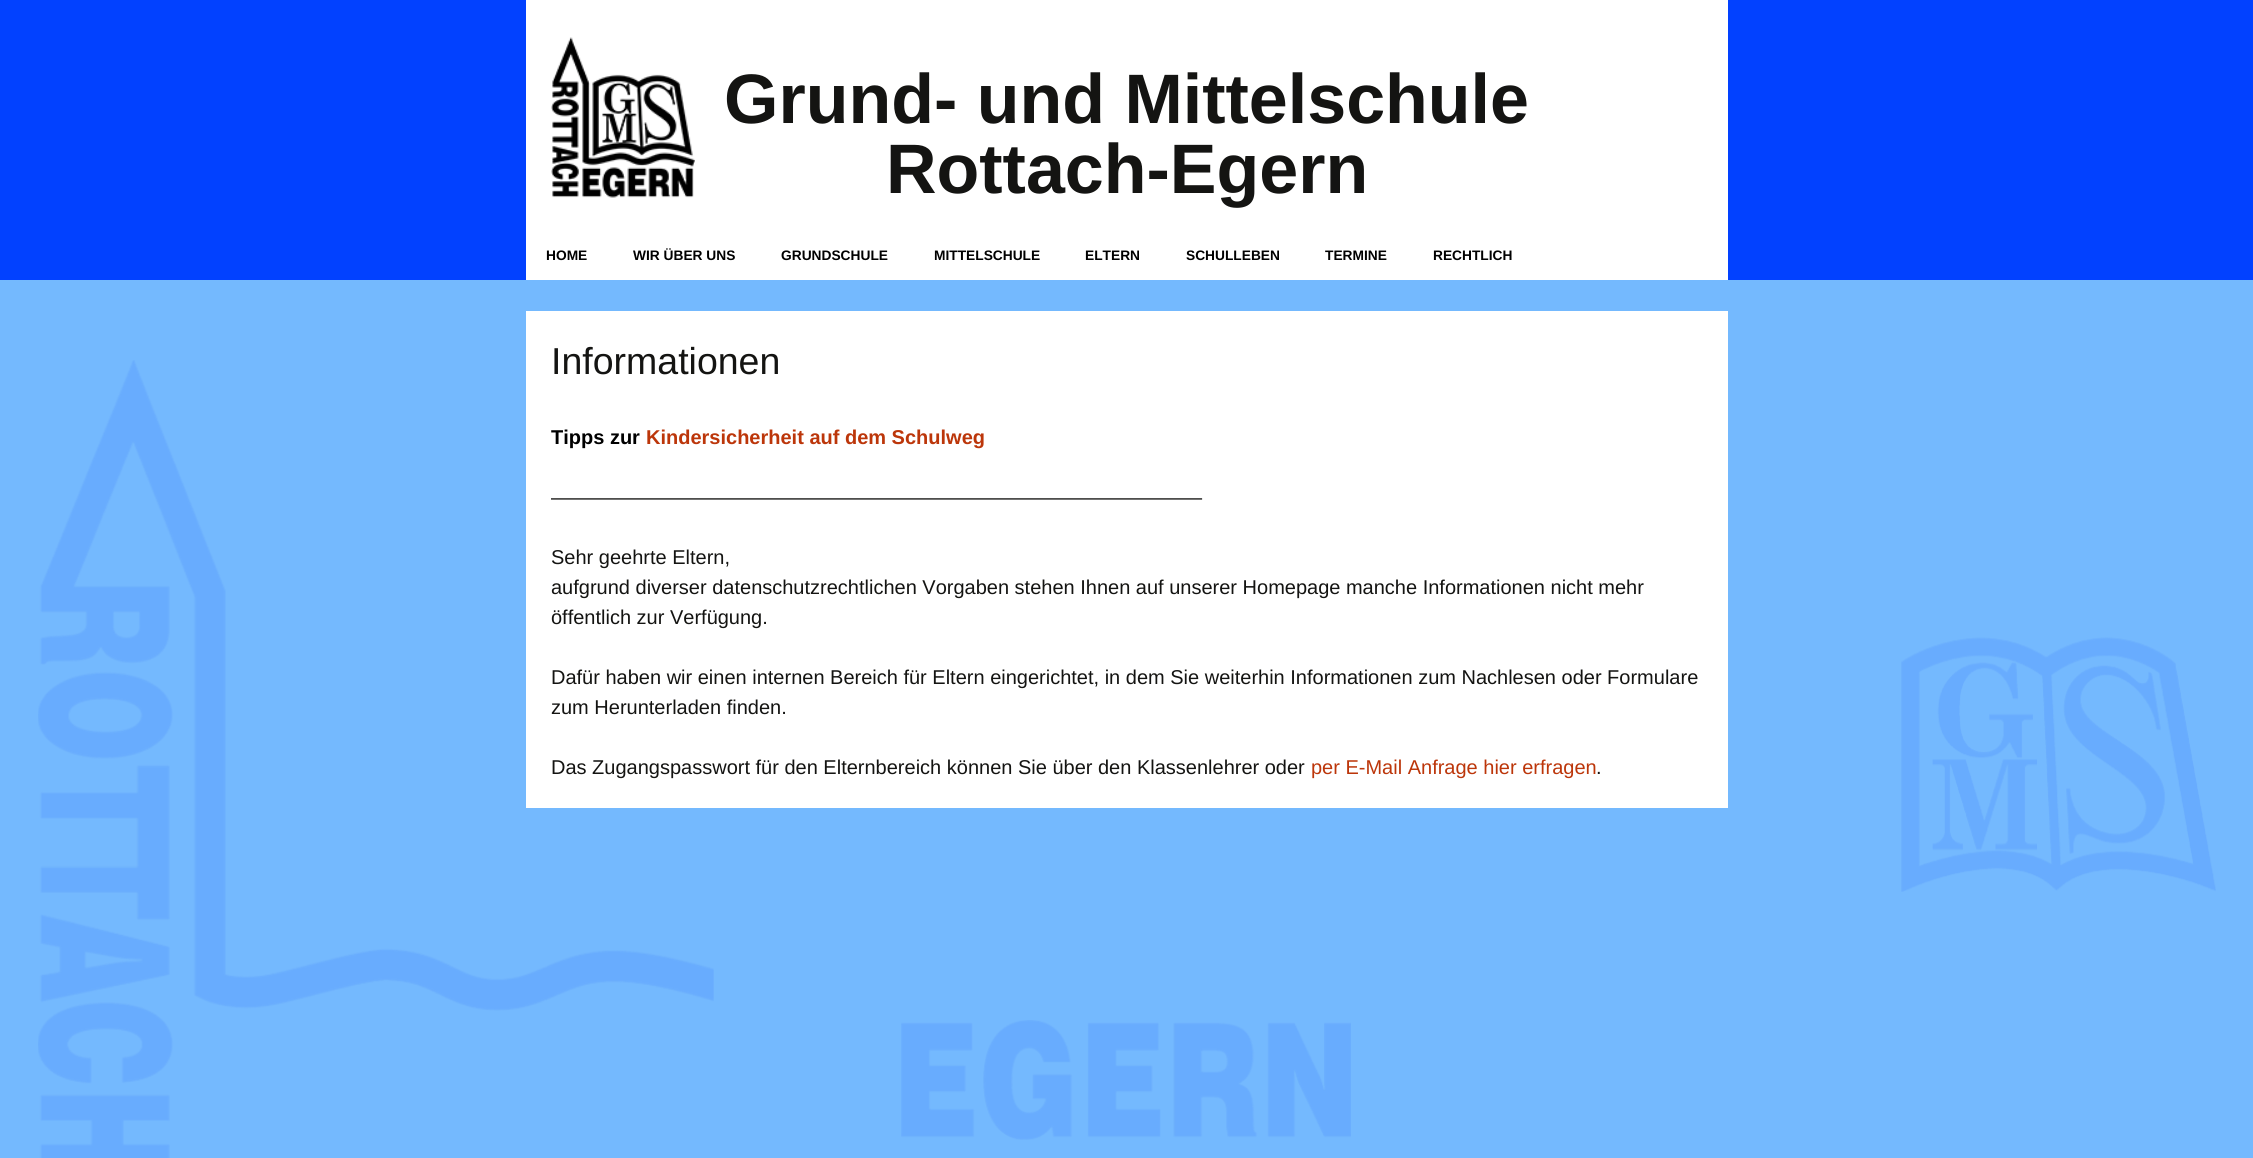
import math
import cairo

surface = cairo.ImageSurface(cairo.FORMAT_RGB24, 2253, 1158)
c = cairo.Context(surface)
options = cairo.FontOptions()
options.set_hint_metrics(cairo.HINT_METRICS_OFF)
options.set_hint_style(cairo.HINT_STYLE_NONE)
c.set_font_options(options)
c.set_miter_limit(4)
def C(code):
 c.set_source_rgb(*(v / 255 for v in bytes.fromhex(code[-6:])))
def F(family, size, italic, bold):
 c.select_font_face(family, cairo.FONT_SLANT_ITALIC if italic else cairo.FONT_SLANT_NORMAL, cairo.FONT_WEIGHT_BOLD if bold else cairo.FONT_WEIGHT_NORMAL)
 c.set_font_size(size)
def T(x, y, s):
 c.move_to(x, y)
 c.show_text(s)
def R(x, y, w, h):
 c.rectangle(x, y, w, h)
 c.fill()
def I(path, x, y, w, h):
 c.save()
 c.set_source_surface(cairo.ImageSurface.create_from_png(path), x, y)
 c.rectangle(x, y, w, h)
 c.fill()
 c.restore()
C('74b9fe')
c.paint()
I('1.png',38,360,676,798)
C('0241ff')
R(0,0,2253,280)
C('ffffff')
R(526,0,1202,280)
I('2.png',551,37,144,161)
F('Liberation Sans',70,0,1)
C('141412')
T(724,123,'Grund- und Mittelschule')
T(886,193,'Rottach-Egern')
F('Liberation Sans',13.75,0,1)
C('000000')
T(546,260,'HOME')
T(633,260,'WIR ÜBER UNS')
T(781,260,'GRUNDSCHULE')
T(934,260,'MITTELSCHULE')
T(1085,260,'ELTERN')
T(1186,260,'SCHULLEBEN')
T(1325,260,'TERMINE')
T(1433,260,'RECHTLICH')
C('ffffff')
R(526,311,1202,497)
F('Liberation Sans',37.5,0,0)
C('141412')
T(551,374,'Informationen')
F('Liberation Sans',20,0,1)
C('000000')
T(551,444,'Tipps zur')
C('bc360a')
T(646,444,'Kindersicherheit auf dem Schulweg')
F('Liberation Sans',20,0,0)
C('141412')
T(551,504,'————————————————————————————————–')
T(551,564,'Sehr geehrte Eltern,')
T(551,594,'aufgrund diverser datenschutzrechtlichen Vorgaben stehen Ihnen auf unserer Homepage manche Informationen nicht mehr')
T(551,624,'öffentlich zur Verfügung.')
T(551,684,'Dafür haben wir einen internen Bereich für Eltern eingerichtet, in dem Sie weiterhin Informationen zum Nachlesen oder Formulare')
T(551,714,'zum Herunterladen finden.')
T(551,774,'Das Zugangspasswort für den Elternbereich können Sie über den Klassenlehrer oder')
C('bc360a')
T(1311,774,'per E-Mail Anfrage hier erfragen')
C('141412')
T(1596,774,'.')
I('3.png',1901,637,315,255)
I('4.png',901,1020,450,120)
surface.write_to_png('o.png')
